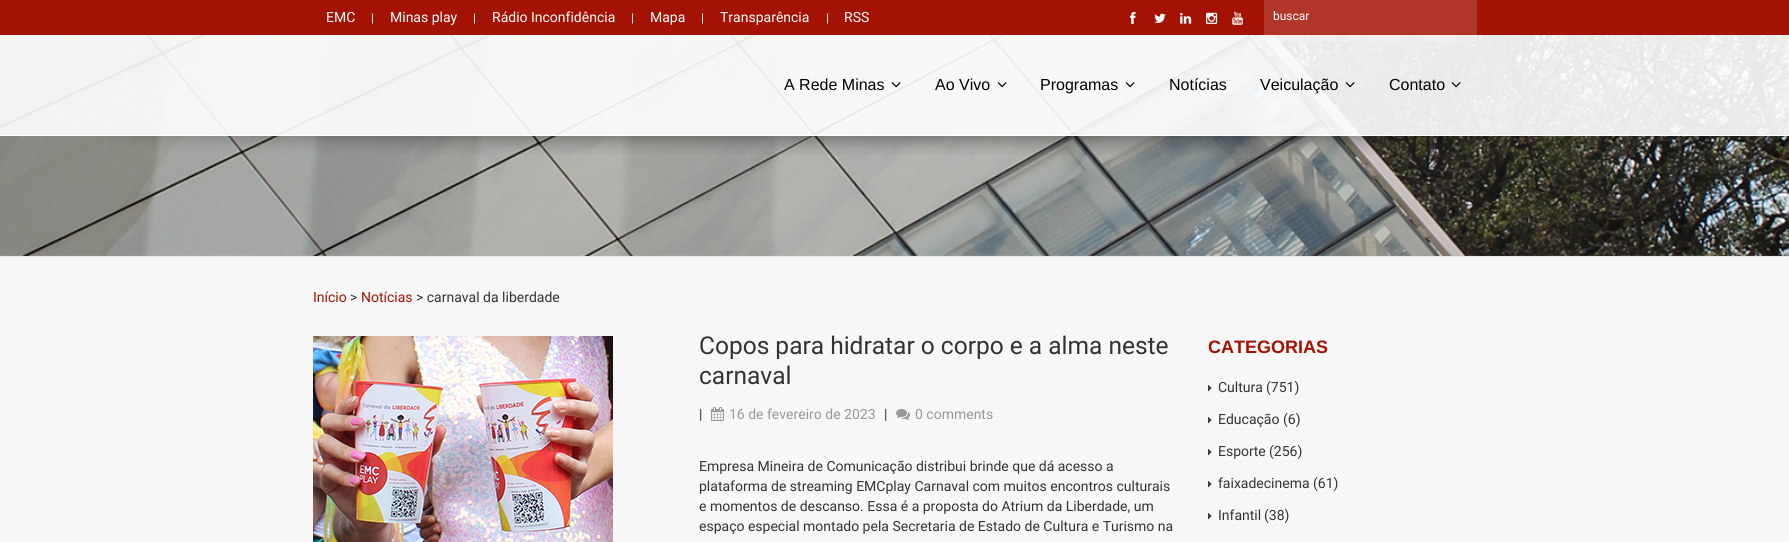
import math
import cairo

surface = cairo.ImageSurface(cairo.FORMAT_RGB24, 1789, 542)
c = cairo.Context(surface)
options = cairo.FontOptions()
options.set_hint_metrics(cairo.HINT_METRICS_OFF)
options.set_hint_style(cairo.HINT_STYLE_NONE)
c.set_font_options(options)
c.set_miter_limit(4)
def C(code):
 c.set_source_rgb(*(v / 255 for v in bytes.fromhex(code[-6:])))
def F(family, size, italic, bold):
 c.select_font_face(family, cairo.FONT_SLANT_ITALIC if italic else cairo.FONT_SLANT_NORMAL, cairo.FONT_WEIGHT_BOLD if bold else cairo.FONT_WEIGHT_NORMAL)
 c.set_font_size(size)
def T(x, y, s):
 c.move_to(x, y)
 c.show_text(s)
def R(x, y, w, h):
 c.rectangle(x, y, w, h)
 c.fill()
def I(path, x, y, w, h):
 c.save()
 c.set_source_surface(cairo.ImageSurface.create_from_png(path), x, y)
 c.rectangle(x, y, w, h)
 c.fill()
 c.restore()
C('ffffff')
c.paint()
I('1.png',0,257,1789,285)
C('a31202')
R(0,0,1789,35)
F('Roboto',14,0,0)
C('ffffff')
T(326,22,'EMC')
F('Roboto',12,0,0)
T(371,22,'|')
F('Roboto',14,0,0)
T(390,22,'Minas play')
F('Roboto',12,0,0)
T(473,22,'|')
F('Roboto',14,0,0)
T(492,22,'Rádio Inconfidência')
F('Roboto',12,0,0)
T(631,22,'|')
F('Roboto',14,0,0)
T(650,22,'Mapa')
F('Roboto',12,0,0)
T(701,22,'|')
F('Roboto',14,0,0)
T(720,22,'Transparência')
F('Roboto',12,0,0)
T(826,22,'|')
F('Roboto',14,0,0)
T(844,22,'RSS')
I('2.png',1130,12,6,12)
I('3.png',1154,13,12,10)
I('4.png',1180,12,12,12)
I('5.png',1206,12,12,12)
I('6.png',1232,11,11,14)
I('13.png',0,35,1789,221)
c.set_source_rgba(1,1,1,0.15)
R(1264,0,213,42)
F('Roboto',12,0,0)
C('ffffff')
T(1273,20,'buscar')
c.set_source_rgba(1,1,1,0.9)
R(0,35,1789,100)
C('ffffff')
R(0,135,1789,1)
F('Liberation Sans',16,0,0)
C('000000')
T(784,90,'A Rede Minas')
I('7.png',891,82,10,6)
T(935,90,'Ao Vivo')
I('8.png',997,82,10,6)
T(1040,90,'Programas')
I('9.png',1125,82,10,6)
T(1169,90,'Notícias')
T(1260,90,'Veiculação')
I('10.png',1345,82,10,6)
T(1389,90,'Contato')
I('11.png',1451,82,10,6)
I('12.png',107,136,1568,19)
C('e9e9e9')
R(0,256,1789,1)
F('Roboto',14,0,0)
C('a31202')
T(313,302,'Início')
C('333333')
T(350,302,'>')
C('a31202')
T(361,302,'Notícias')
C('333333')
T(416,302,'> carnaval da liberdade')
I('14.png',313,336,300,206)
F('Roboto',24.5,0,0)
T(699,354,'Copos para hidratar o corpo e a alma neste')
T(699,384,'carnaval')
F('Roboto',14,0,0)
T(699,419,'|')
I('15.png',711,407,13,14)
C('989898')
T(729,419,'16 de fevereiro de 2023')
C('333333')
T(884,419,'|')
I('16.png',896,409,14,11)
C('989898')
T(915,419,'0 comments')
C('333333')
T(699,471,'Empresa Mineira de Comunicação distribui brinde que dá acesso a')
T(699,491,'plataforma de streaming EMCplay Carnaval com muitos encontros culturais')
T(699,511,'e momentos de descanso. Essa é a proposta do Atrium da Liberdade, um')
T(699,531,'espaço especial montado pela Secretaria de Estado de Cultura e Turismo na')
F('Liberation Sans',18,0,1)
C('a31202')
T(1208,353,'CATEGORIAS')
I('17.png',1208,385,4,7)
F('Roboto',14,0,0)
C('333333')
T(1218,392,'Cultura')
T(1266,392,'(751)')
I('17.png',1208,417,4,7)
T(1218,424,'Educação')
T(1283,424,'(6)')
I('17.png',1208,449,4,7)
T(1218,456,'Esporte')
T(1269,456,'(256)')
I('17.png',1208,481,4,7)
T(1218,488,'faixadecinema')
T(1313,488,'(61)')
I('17.png',1208,513,4,7)
T(1218,520,'Infantil')
T(1264,520,'(38)')
surface.write_to_png('o.png')
